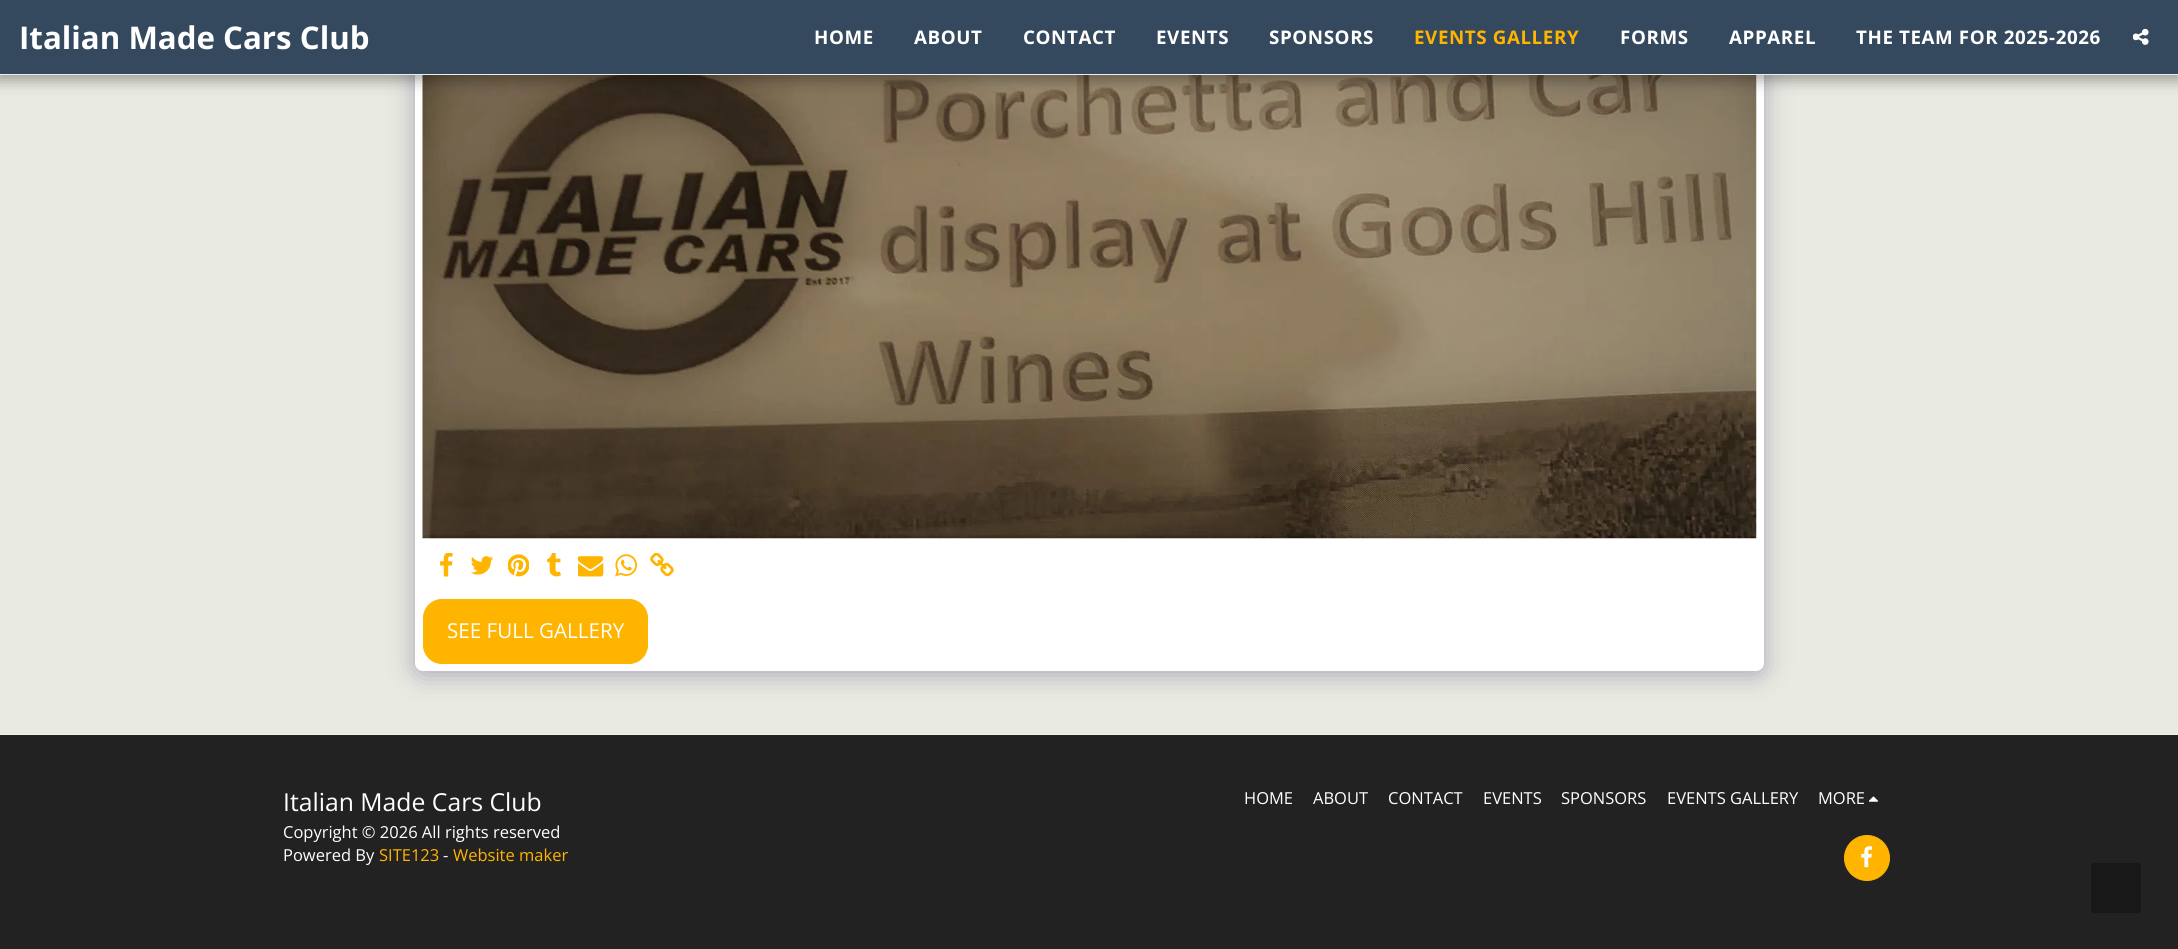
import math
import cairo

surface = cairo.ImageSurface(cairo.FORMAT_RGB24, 2178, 949)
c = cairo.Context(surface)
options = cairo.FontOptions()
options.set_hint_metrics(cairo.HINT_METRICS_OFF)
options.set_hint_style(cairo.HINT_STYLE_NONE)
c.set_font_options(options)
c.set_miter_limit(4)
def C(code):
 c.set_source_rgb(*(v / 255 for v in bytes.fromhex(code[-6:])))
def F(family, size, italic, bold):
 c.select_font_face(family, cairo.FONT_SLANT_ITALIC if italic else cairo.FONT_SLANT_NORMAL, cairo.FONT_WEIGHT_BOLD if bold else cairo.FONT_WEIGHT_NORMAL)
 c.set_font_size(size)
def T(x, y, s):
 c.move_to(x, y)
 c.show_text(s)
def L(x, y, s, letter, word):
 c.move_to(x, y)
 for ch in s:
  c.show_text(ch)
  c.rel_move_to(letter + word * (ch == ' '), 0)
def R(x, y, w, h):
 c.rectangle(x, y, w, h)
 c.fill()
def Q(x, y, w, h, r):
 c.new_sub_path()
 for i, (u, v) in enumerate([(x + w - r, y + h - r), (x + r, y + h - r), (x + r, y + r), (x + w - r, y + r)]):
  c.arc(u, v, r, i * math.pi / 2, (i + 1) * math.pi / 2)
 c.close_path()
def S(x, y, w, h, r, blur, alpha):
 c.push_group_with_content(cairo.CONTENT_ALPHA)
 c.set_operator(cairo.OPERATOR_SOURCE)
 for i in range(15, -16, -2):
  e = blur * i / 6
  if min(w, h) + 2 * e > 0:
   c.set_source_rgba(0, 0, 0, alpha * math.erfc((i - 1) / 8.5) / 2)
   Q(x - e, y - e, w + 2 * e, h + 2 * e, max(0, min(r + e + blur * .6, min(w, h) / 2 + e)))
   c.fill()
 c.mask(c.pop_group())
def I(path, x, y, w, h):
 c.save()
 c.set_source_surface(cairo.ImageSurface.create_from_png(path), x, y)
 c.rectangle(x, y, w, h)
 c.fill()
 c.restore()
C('e9eae2')
c.paint()
C('4d3f7a')
S(415,-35,1349,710,8,12.5,.4)
C('ffffff')
Q(415,-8,1349,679,8)
c.fill()
I('2.png',422,75,1335,464)
C('000000')
S(-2,0,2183,80,0,7.5,.35)
C('34495e')
R(0,0,2178,74)
C('f3eeee')
R(0,74,2178,1)
F('Open Sans',31.25,0,1)
C('ffffff')
T(19,49,'Italian Made Cars Club')
F('Open Sans',18.75,0,1)
L(814,44,'HOME',.6,0)
L(914,44,'ABOUT',.6,0)
L(1023,44,'CONTACT',.6,0)
L(1156,44,'EVENTS',.6,0)
L(1269,44,'SPONSORS',.6,0)
C('ffb400')
L(1414,44,'EVENTS GALLERY',.6,0)
C('ffffff')
L(1620,44,'FORMS',.6,0)
L(1729,44,'APPAREL',.6,0)
L(1856,44,'THE TEAM FOR 2025-2026',.6,0)
I('1.png',2133,28,16,17)
I('3.png',440,553,13,24)
I('4.png',470,556,24,19)
I('5.png',508,554,21,23)
I('6.png',547,553,14,24)
I('7.png',578,556,26,21)
I('8.png',615,554,23,23)
I('9.png',650,553,24,24)
C('ffb400')
Q(423.5,599.5,224,64,18.5)
c.fill_preserve()
c.set_line_width(1)
c.stroke()
F('Open Sans',20.6,0,0)
C('ffffff')
T(447,638,'SEE FULL GALLERY')
C('222222')
R(0,735,2178,214)
C('f3eeee')
R(0,734,2178,1)
F('Open Sans',24.75,0,0)
C('ffffff')
T(283,811,'Italian Made Cars Club')
F('Open Sans',16.5,0,0)
T(283,838,'Copyright © 2026 All rights reserved')
T(283,861,'Powered By')
C('ffb400')
T(379,861,'SITE123')
C('ffffff')
T(443,861,'-')
C('ffb400')
T(453,861,'Website maker')
C('ffffff')
T(1244,804,'HOME')
T(1313,804,'ABOUT')
T(1388,804,'CONTACT')
T(1483,804,'EVENTS')
T(1561,804,'SPONSORS')
T(1667,804,'EVENTS GALLERY')
T(1818,804,'MORE')
I('10.png',1869,796,10,6)
C('ffb400')
c.arc(1867,858,22.5,0,2 * math.pi)
c.fill_preserve()
c.stroke()
I('11.png',1861,846,12,22)
C('181818')
Q(2091,863,50,50,2.5)
c.fill()
surface.write_to_png('o.png')
